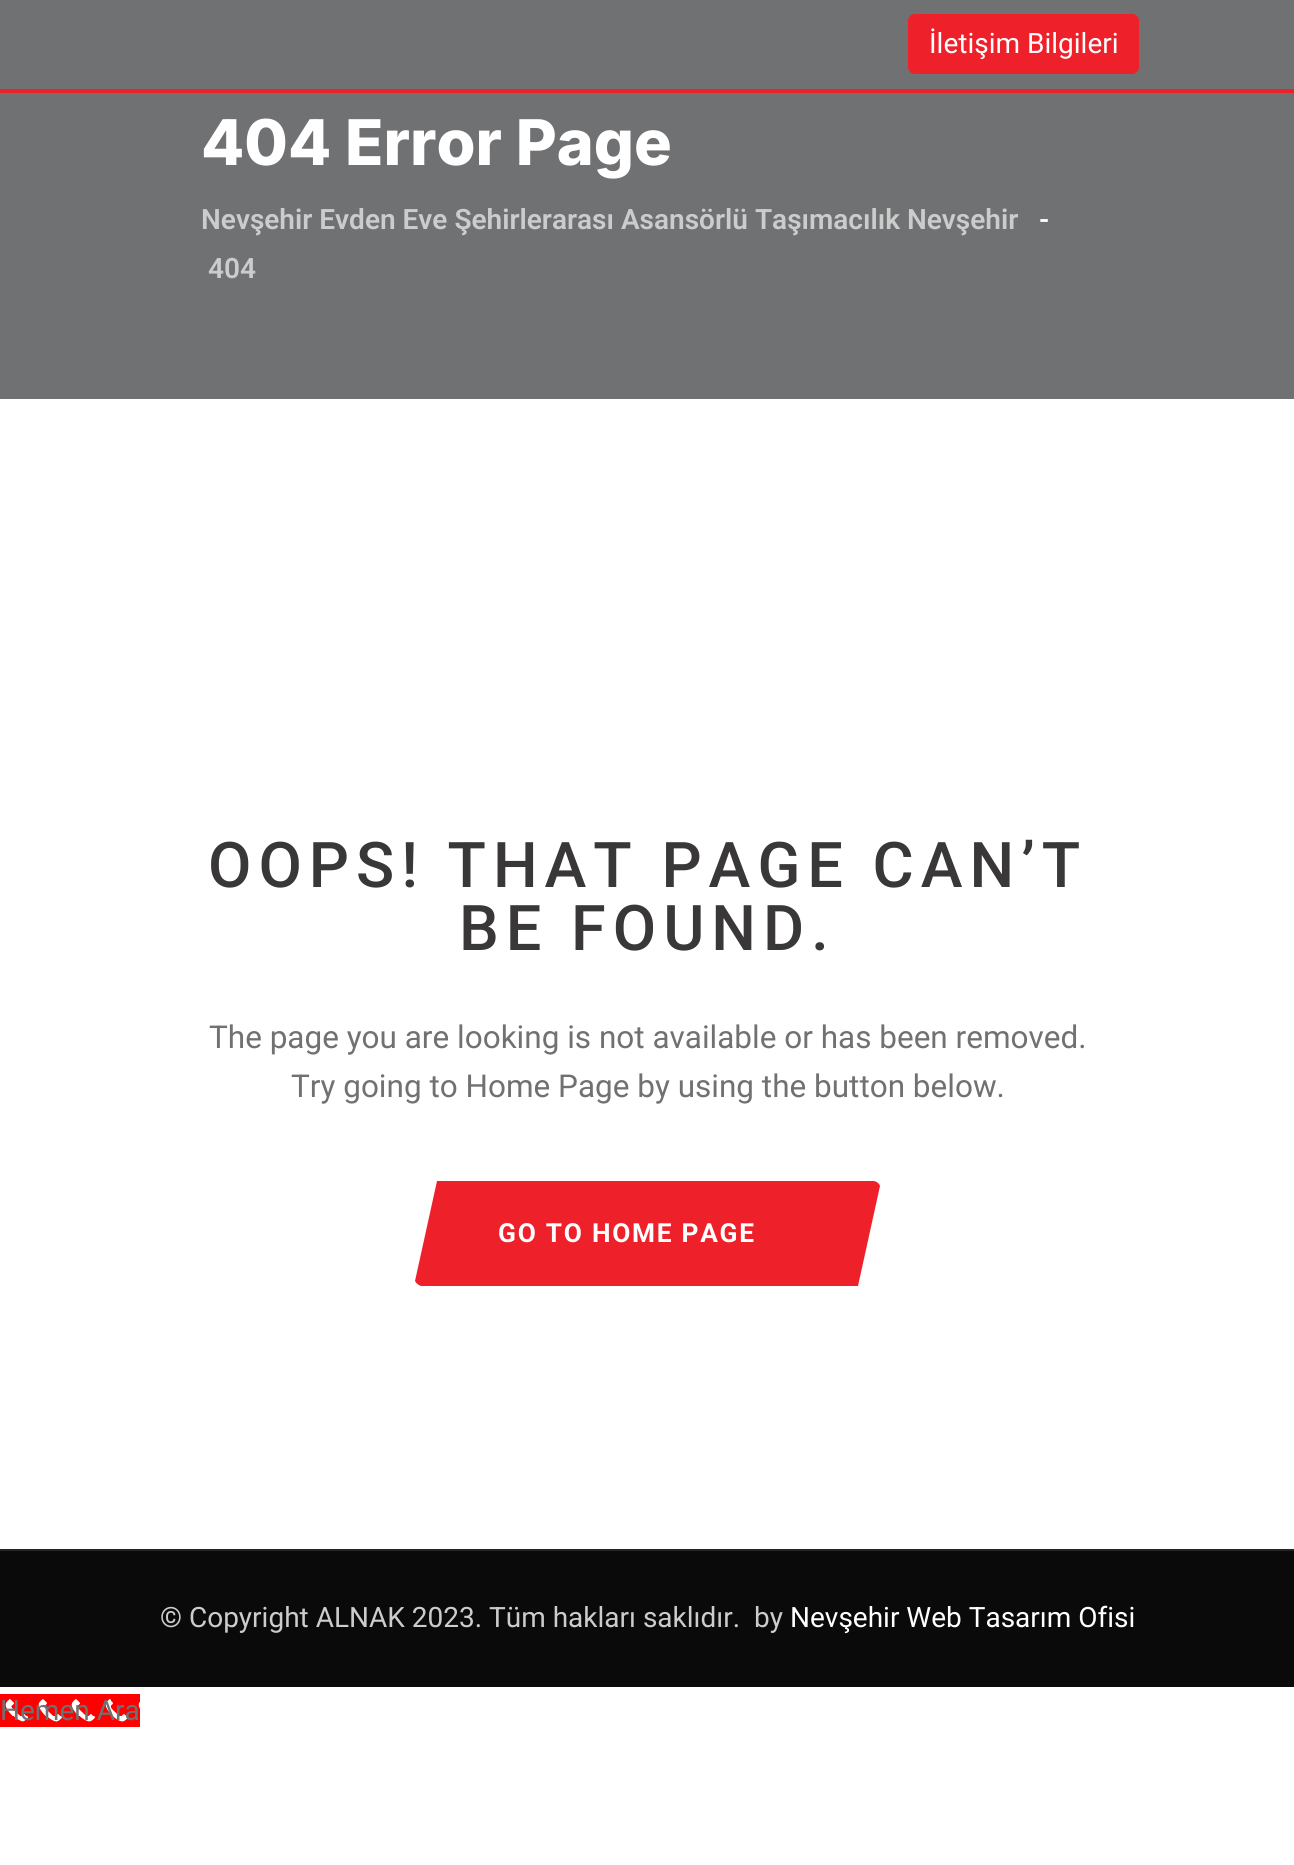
import math
import cairo

surface = cairo.ImageSurface(cairo.FORMAT_RGB24, 1294, 1865)
c = cairo.Context(surface)
options = cairo.FontOptions()
options.set_hint_metrics(cairo.HINT_METRICS_OFF)
options.set_hint_style(cairo.HINT_STYLE_NONE)
c.set_font_options(options)
c.set_miter_limit(4)
def C(code):
 c.set_source_rgb(*(v / 255 for v in bytes.fromhex(code[-6:])))
def F(family, size, italic, bold):
 c.select_font_face(family, cairo.FONT_SLANT_ITALIC if italic else cairo.FONT_SLANT_NORMAL, cairo.FONT_WEIGHT_BOLD if bold else cairo.FONT_WEIGHT_NORMAL)
 c.set_font_size(size)
def T(x, y, s):
 c.move_to(x, y)
 c.show_text(s)
def L(x, y, s, letter, word):
 c.move_to(x, y)
 for ch in s:
  c.show_text(ch)
  c.rel_move_to(letter + word * (ch == ' '), 0)
def R(x, y, w, h):
 c.rectangle(x, y, w, h)
 c.fill()
def Q(x, y, w, h, r):
 c.new_sub_path()
 for i, (u, v) in enumerate([(x + w - r, y + h - r), (x + r, y + h - r), (x + r, y + r), (x + w - r, y + r)]):
  c.arc(u, v, r, i * math.pi / 2, (i + 1) * math.pi / 2)
 c.close_path()
def I(path, x, y, w, h):
 c.save()
 c.set_source_surface(cairo.ImageSurface.create_from_png(path), x, y)
 c.rectangle(x, y, w, h)
 c.fill()
 c.restore()
C('ffffff')
c.paint()
C('707173')
R(0,0,1294,399)
C('ee212b')
R(0,89,1294,4)
Q(908,14,231,60,7)
c.fill()
F('Roboto',28,0,0)
C('ffffff')
T(929,53,'İletişim Bilgileri')
F('Inter ExtraBold',63,0,0)
T(201,165,'404 Error Page')
F('Roboto SemiBold',28,0,0)
C('cccccc')
T(201,229,'Nevşehir Evden Eve Şehirlerarası Asansörlü Taşımacılık Nevşehir')
C('ffffff')
T(1039,229,'-')
C('cccccc')
T(208,278,'404')
F('Roboto Medium',63,0,0)
C('393738')
L(208,887,'OOPS! THAT PAGE CAN’T',7,0)
L(459,950,'BE FOUND.',7,0)
F('Roboto',31.5,0,0)
C('707173')
T(209,1048,'The page you are looking is not available or has been removed.')
T(291,1097,'Try going to Home Page by using the button below.')
C('ee212b')
c.new_path()
c.move_to(415,1281)
c.line_to(437,1181)
c.line_to(873,1181)
c.curve_to(876,1181,879,1183,880,1186)
c.line_to(858,1286)
c.line_to(421,1286)
c.curve_to(418,1285,416,1283,415,1281)
c.close_path()
c.fill()
F('Roboto',26.25,0,1)
C('ffffff')
L(498,1242,'GO TO HOME PAGE',1.75,0)
C('0a0a0a')
R(0,1551,1294,136)
C('242424')
R(0,1549,1294,2)
F('Roboto',28,0,0)
C('cccccc')
T(160,1627,'© Copyright ALNAK 2023. Tüm hakları saklıdır.  by')
C('ffffff')
T(790,1627,'Nevşehir Web Tasarım Ofisi')
C('ff0000')
R(0,1694,140,33)
I('1.png',5,1699,135,23)
C('707173')
T(0,1720,'Hemen Ara')
surface.write_to_png('o.png')
